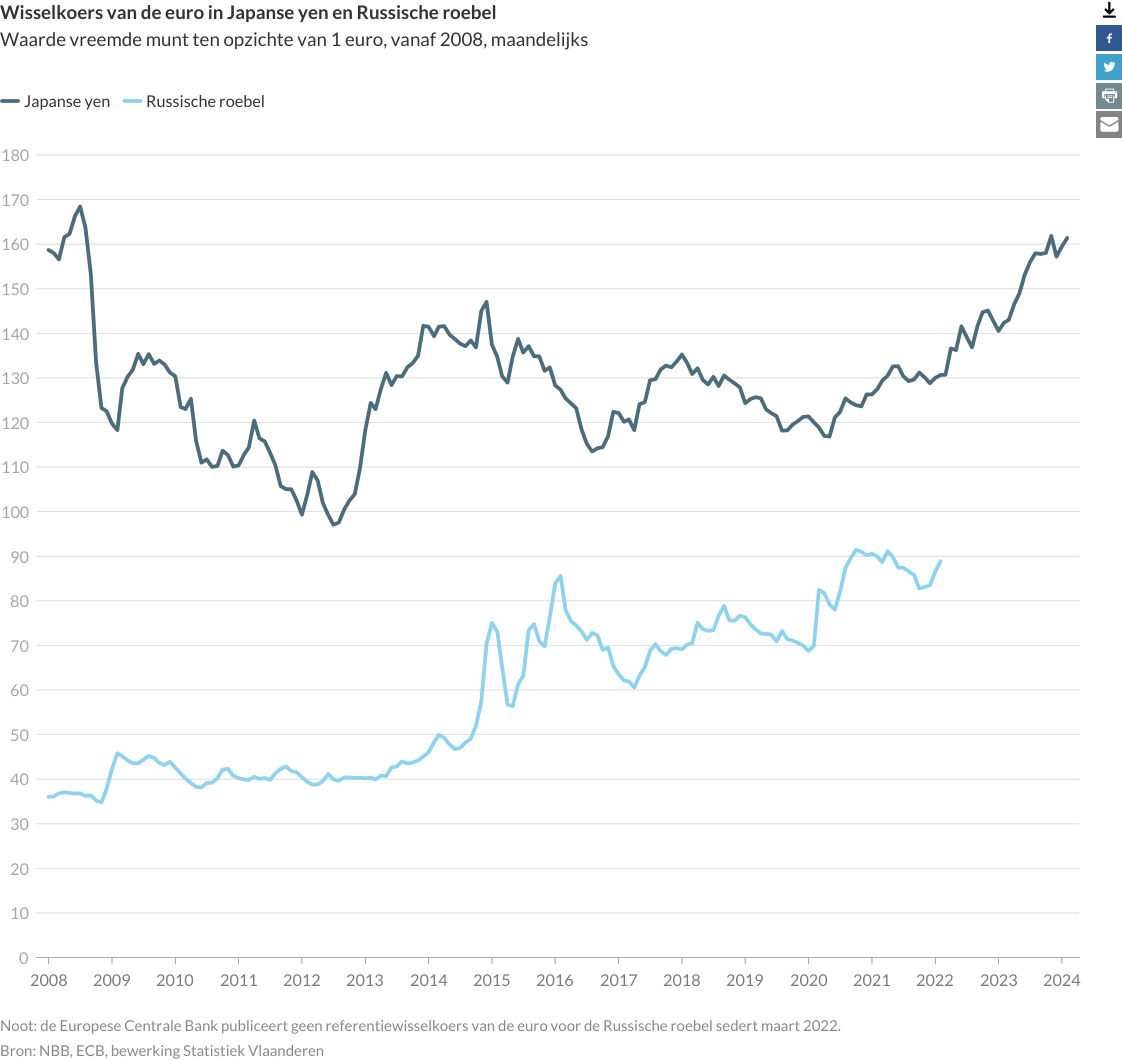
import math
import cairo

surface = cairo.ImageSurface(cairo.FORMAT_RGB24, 1122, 1060)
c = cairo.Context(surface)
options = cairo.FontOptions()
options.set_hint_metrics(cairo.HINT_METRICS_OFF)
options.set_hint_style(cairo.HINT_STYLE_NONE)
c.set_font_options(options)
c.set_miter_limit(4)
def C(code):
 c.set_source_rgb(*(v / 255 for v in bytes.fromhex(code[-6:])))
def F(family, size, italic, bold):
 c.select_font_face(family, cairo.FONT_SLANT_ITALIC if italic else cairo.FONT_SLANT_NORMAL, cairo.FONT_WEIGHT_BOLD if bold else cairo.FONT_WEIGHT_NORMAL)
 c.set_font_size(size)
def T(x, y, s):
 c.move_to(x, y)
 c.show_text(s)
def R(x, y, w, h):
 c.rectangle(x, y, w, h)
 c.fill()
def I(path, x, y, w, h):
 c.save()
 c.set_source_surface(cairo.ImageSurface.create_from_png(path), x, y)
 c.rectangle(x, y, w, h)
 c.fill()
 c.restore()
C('ffffff')
c.paint()
F('Lato',18.75,0,1)
C('333333')
T(0,19,'Wisselkoers van de euro in Japanse yen en Russische roebel')
F('Lato',18.75,0,0)
T(0,46,'Waarde vreemde munt ten opzichte van 1 euro, vanaf 2008, maandelijks')
c.new_path()
c.move_to(2,101)
c.line_to(18,101)
C('4b6c7a')
c.set_line_width(3.8)
c.set_line_cap(cairo.LINE_CAP_ROUND)
c.stroke()
F('Lato',16.25,0,0)
C('333333')
T(24,107,'Japanse yen')
c.new_path()
c.move_to(124.5,101)
c.line_to(140.5,101)
C('8ed2ee')
c.stroke()
C('333333')
T(146,107,'Russische roebel')
I('1.png',36,154,1044,810)
C('a6a6a6')
T(1,161,'180')
T(1,206,'170')
T(1,250,'160')
T(1,295,'150')
T(1,340,'140')
T(1,384,'130')
T(1,429,'120')
T(1,473,'110')
T(1,518,'100')
T(10,563,'90')
T(10,607,'80')
T(10,652,'70')
T(10,696,'60')
T(10,741,'50')
T(10,785,'40')
T(10,830,'30')
T(10,875,'20')
T(10,919,'10')
T(19,964,'0')
C('7b7b7b')
T(30,986,'2008')
T(93,986,'2009')
T(156,986,'2010')
T(220,986,'2011')
T(283,986,'2012')
T(346,986,'2013')
T(410,986,'2014')
T(473,986,'2015')
T(536,986,'2016')
T(600,986,'2017')
T(663,986,'2018')
T(726,986,'2019')
T(790,986,'2020')
T(853,986,'2021')
T(916,986,'2022')
T(980,986,'2023')
T(1043,986,'2024')
I('2.png',1102,1,14,17)
C('305891')
R(1096,25,26,26)
I('3.png',1106,33,6,11)
C('3fa1cc')
R(1096,54,26,26)
I('4.png',1103,61,13,11)
C('738a8d')
R(1096,83,26,26)
I('5.png',1102,88,16,15)
C('848484')
R(1096,111,26,27)
I('6.png',1100,117,19,15)
F('Lato',15,0,0)
C('888888')
T(0,1031,'Noot: de Europese Centrale Bank publiceert geen referentiewisselkoers van de euro voor de Russische roebel sedert maart 2022.')
T(0,1056,'Bron: NBB, ECB, bewerking Statistiek Vlaanderen')
surface.write_to_png('o.png')
